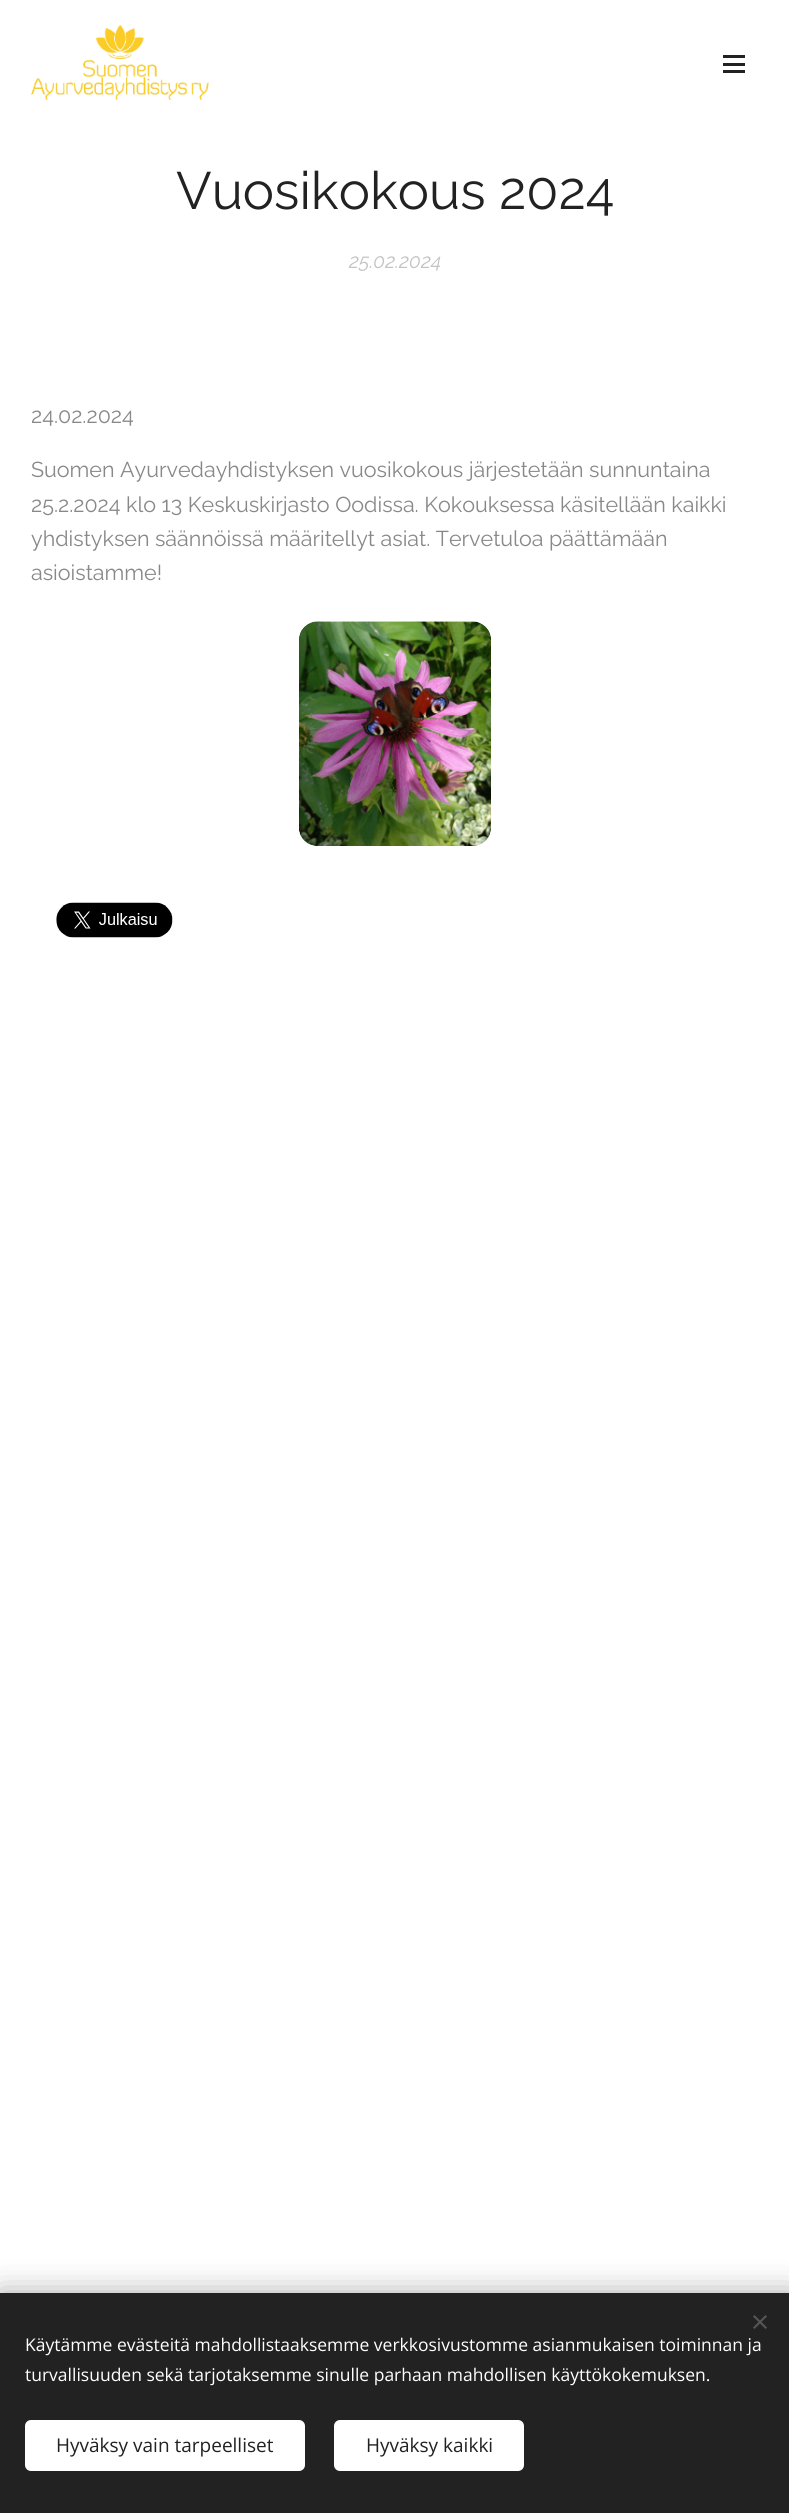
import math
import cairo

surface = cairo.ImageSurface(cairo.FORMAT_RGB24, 789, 2513)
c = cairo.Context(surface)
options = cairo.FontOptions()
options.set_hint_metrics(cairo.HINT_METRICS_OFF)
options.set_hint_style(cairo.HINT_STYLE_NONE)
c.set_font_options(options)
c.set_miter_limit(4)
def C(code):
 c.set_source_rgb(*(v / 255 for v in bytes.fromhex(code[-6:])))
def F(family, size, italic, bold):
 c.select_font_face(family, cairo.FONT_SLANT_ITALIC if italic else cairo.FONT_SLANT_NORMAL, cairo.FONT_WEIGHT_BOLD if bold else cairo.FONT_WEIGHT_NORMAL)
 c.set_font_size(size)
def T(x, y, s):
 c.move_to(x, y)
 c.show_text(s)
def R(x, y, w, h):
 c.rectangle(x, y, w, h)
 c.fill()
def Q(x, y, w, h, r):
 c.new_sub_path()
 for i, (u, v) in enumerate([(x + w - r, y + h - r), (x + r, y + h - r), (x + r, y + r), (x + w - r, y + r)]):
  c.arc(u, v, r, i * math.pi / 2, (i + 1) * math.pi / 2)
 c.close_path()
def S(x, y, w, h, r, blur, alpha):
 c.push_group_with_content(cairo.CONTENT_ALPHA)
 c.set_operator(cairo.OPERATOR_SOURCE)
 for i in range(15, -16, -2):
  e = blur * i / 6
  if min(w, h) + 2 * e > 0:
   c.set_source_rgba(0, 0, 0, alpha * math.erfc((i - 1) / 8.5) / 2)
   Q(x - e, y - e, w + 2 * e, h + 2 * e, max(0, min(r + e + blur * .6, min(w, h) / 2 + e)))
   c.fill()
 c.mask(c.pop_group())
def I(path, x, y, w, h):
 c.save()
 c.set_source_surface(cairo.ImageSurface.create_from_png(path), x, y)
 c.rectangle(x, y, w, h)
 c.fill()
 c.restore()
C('ffffff')
c.paint()
I('1.png',31,25,178,75)
C('222222')
R(723,63,22,3)
R(723,55,22,3)
R(723,70,22,3)
F('Raleway',52.5,0,0)
T(176,209,'Vuosikokous 2024')
F('Raleway',20,1,0)
C('c3c3c3')
T(349,268,'25.02.2024')
F('Raleway',21.5,0,0)
C('888888')
T(31,423,'24.02.2024')
T(31,477,'Suomen Ayurvedayhdistyksen vuosikokous järjestetään sunnuntaina')
T(31,512,'25.2.2024 klo 13 Keskuskirjasto Oodissa. Kokouksessa käsitellään kaikki')
T(31,546,'yhdistyksen säännöissä määritellyt asiat. Tervetuloa päättämään')
T(31,580,'asioistamme!')
I('2.png',299,621,192,225)
I('3.png',56,902,117,36)
C('000000')
S(0,2293,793,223,0,15.5,.33)
C('222222')
R(0,2293,789,220)
C('555555')
c.new_path()
c.move_to(753,2327.5)
c.line_to(765.5,2315)
c.line_to(767,2316.5)
c.line_to(754.5,2329)
c.close_path()
c.fill()
c.new_path()
c.move_to(754.5,2315)
c.line_to(767,2327.5)
c.line_to(765.5,2329)
c.line_to(753,2316.5)
c.close_path()
c.fill()
F('Open Sans',17.5,0,0)
C('ffffff')
T(25,2351,'Käytämme evästeitä mahdollistaaksemme verkkosivustomme asianmukaisen toiminnan ja')
T(25,2381,'turvallisuuden sekä tarjotaksemme sinulle parhaan mahdollisen käyttökokemuksen.')
Q(25,2420,280,51,6)
c.fill()
F('Open Sans',19,0,0)
C('222222')
T(56,2452,'Hyväksy vain tarpeelliset')
C('ffffff')
Q(334,2420,190,51,6)
c.fill()
C('222222')
T(366,2452,'Hyväksy kaikki')
surface.write_to_png('o.png')
